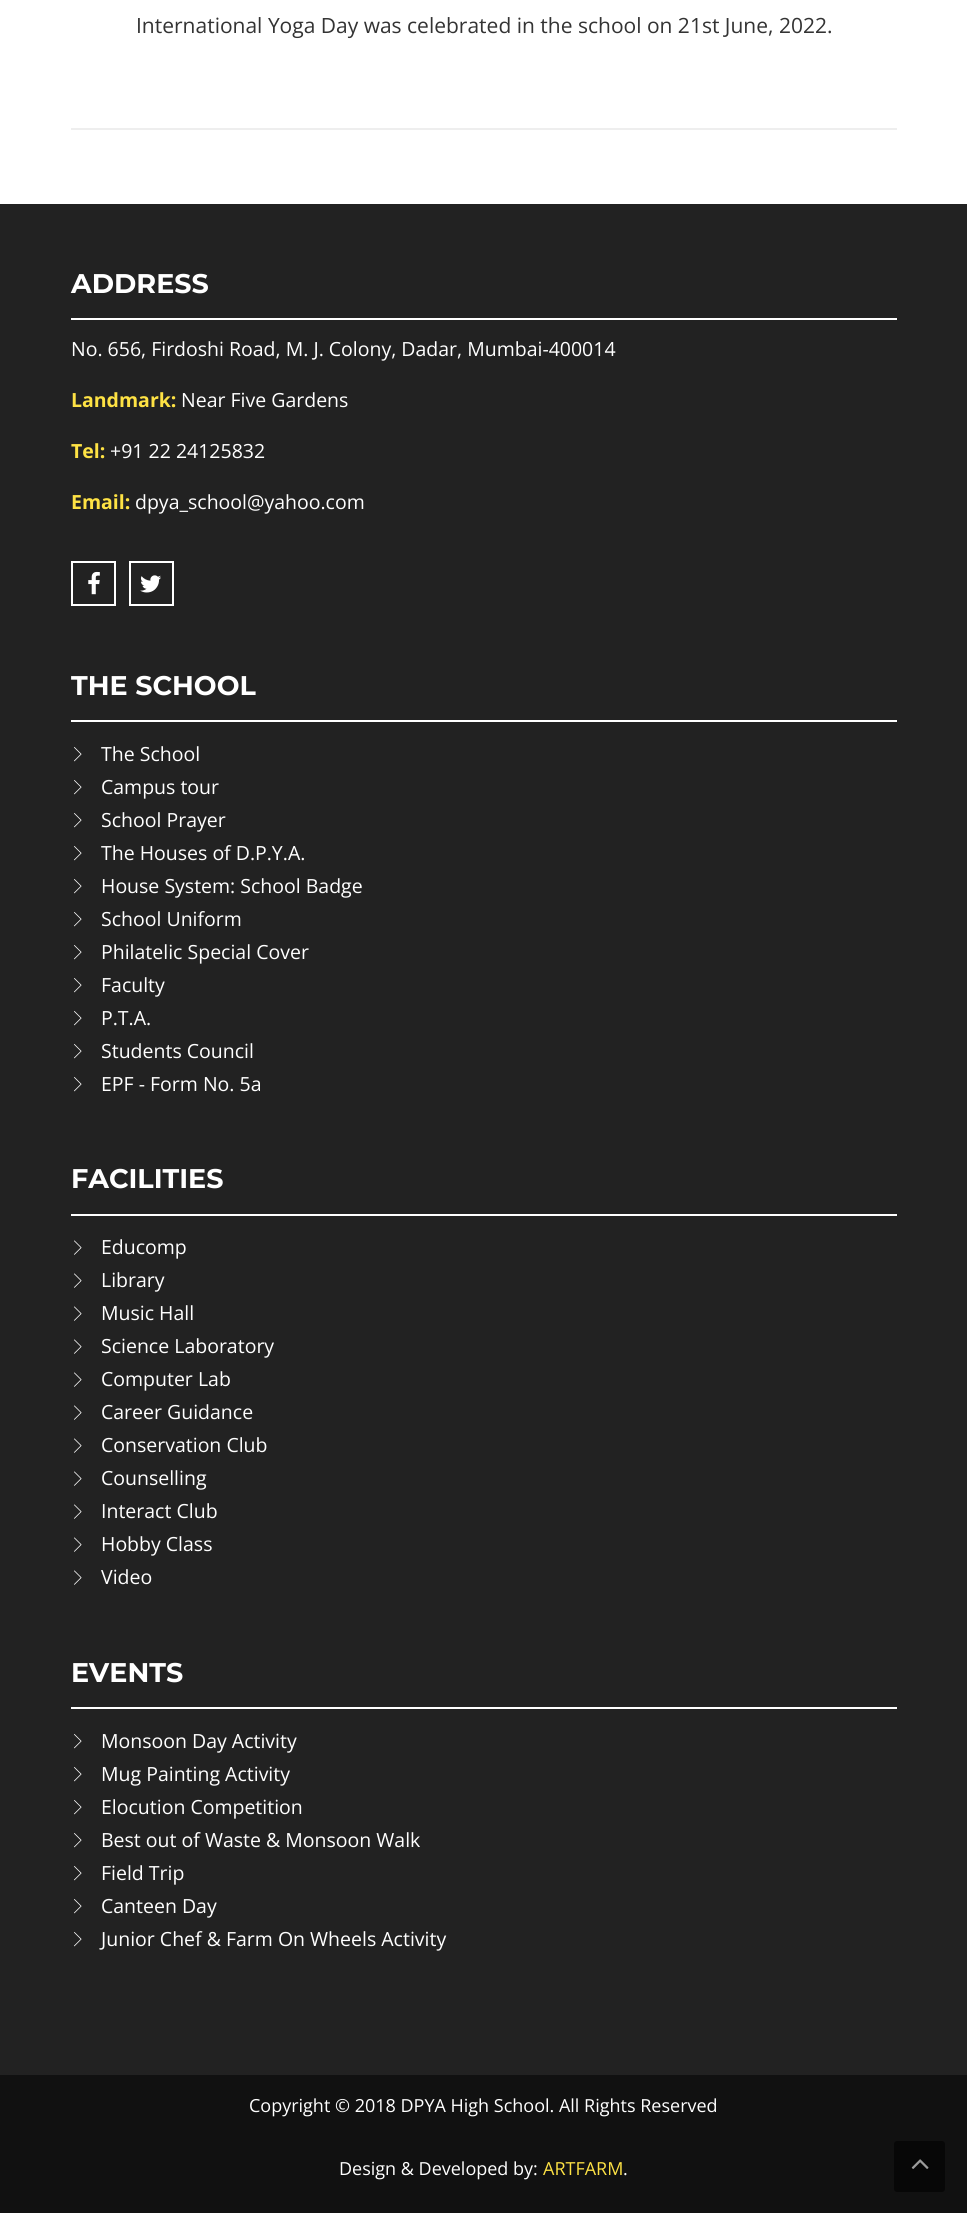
import math
import cairo

surface = cairo.ImageSurface(cairo.FORMAT_RGB24, 967, 2213)
c = cairo.Context(surface)
options = cairo.FontOptions()
options.set_hint_metrics(cairo.HINT_METRICS_OFF)
options.set_hint_style(cairo.HINT_STYLE_NONE)
c.set_font_options(options)
c.set_miter_limit(4)
def C(code):
 c.set_source_rgb(*(v / 255 for v in bytes.fromhex(code[-6:])))
def F(family, size, italic, bold):
 c.select_font_face(family, cairo.FONT_SLANT_ITALIC if italic else cairo.FONT_SLANT_NORMAL, cairo.FONT_WEIGHT_BOLD if bold else cairo.FONT_WEIGHT_NORMAL)
 c.set_font_size(size)
def T(x, y, s):
 c.move_to(x, y)
 c.show_text(s)
def R(x, y, w, h):
 c.rectangle(x, y, w, h)
 c.fill()
def Q(x, y, w, h, r):
 c.new_sub_path()
 for i, (u, v) in enumerate([(x + w - r, y + h - r), (x + r, y + h - r), (x + r, y + r), (x + w - r, y + r)]):
  c.arc(u, v, r, i * math.pi / 2, (i + 1) * math.pi / 2)
 c.close_path()
def I(path, x, y, w, h):
 c.save()
 c.set_source_surface(cairo.ImageSurface.create_from_png(path), x, y)
 c.rectangle(x, y, w, h)
 c.fill()
 c.restore()
C('ffffff')
c.paint()
F('Open Sans',21,0,0)
C('333333')
T(136,33,'International Yoga Day was celebrated in the school on 21st June, 2022.')
C('eeeeee')
R(71,128,826,2)
C('222222')
R(0,204,967,1871)
F('Montserrat',27,0,1)
C('ffffff')
T(71,293,'ADDRESS')
R(71,318,826,2)
F('Open Sans',19.5,0,0)
T(71,356,'No. 656, Firdoshi Road, M. J. Colony, Dadar, Mumbai-400014')
F('Open Sans',19.5,0,1)
C('fee244')
T(71,407,'Landmark:')
F('Open Sans',19.5,0,0)
C('ffffff')
T(181,407,'Near Five Gardens')
F('Open Sans',19.5,0,1)
C('fee244')
T(71,458,'Tel:')
F('Open Sans',19.5,0,0)
C('ffffff')
T(110,458,'+91 22 24125832')
F('Open Sans',19.5,0,1)
C('fee244')
T(71,509,'Email:')
F('Open Sans',19.5,0,0)
C('ffffff')
T(135,509,'dpya_school@yahoo.com')
c.rectangle(72,562,43,43)
c.stroke()
I('1.png',88,571,12,24)
c.rectangle(130,562,43,43)
c.stroke()
I('2.png',140,575,21,18)
F('Montserrat',27,0,1)
T(71,695,'THE SCHOOL')
R(71,720,826,2)
I('3.png',74,747,8,15)
F('Open Sans',19.5,0,0)
T(101,761,'The School')
I('3.png',74,780,8,15)
T(101,794,'Campus tour')
I('3.png',74,813,8,15)
T(101,827,'School Prayer')
I('3.png',74,846,8,15)
T(101,860,'The Houses of D.P.Y.A.')
I('3.png',74,879,8,15)
T(101,893,'House System: School Badge')
I('3.png',74,912,8,15)
T(101,926,'School Uniform')
I('3.png',74,945,8,15)
T(101,959,'Philatelic Special Cover')
I('3.png',74,978,8,15)
T(101,992,'Faculty')
I('3.png',74,1011,8,15)
T(101,1025,'P.T.A.')
I('3.png',74,1044,8,15)
T(101,1058,'Students Council')
I('3.png',74,1077,8,15)
T(101,1091,'EPF - Form No. 5a')
F('Montserrat',27,0,1)
T(71,1188,'FACILITIES')
R(71,1214,826,2)
I('4.png',74,1240,8,15)
F('Open Sans',19.5,0,0)
T(101,1254,'Educomp')
I('4.png',74,1273,8,15)
T(101,1287,'Library')
I('4.png',74,1306,8,15)
T(101,1320,'Music Hall')
I('4.png',74,1339,8,15)
T(101,1353,'Science Laboratory')
I('4.png',74,1372,8,15)
T(101,1386,'Computer Lab')
I('4.png',74,1405,8,15)
T(101,1419,'Career Guidance')
I('4.png',74,1438,8,15)
T(101,1452,'Conservation Club')
I('4.png',74,1471,8,15)
T(101,1485,'Counselling')
I('4.png',74,1504,8,15)
T(101,1518,'Interact Club')
I('4.png',74,1537,8,15)
T(101,1551,'Hobby Class')
I('4.png',74,1570,8,15)
T(101,1584,'Video')
F('Montserrat',27,0,1)
T(71,1682,'EVENTS')
R(71,1707,826,2)
I('3.png',74,1734,8,15)
F('Open Sans',19.5,0,0)
T(101,1748,'Monsoon Day Activity')
I('3.png',74,1767,8,15)
T(101,1781,'Mug Painting Activity')
I('3.png',74,1800,8,15)
T(101,1814,'Elocution Competition')
I('3.png',74,1833,8,15)
T(101,1847,'Best out of Waste & Monsoon Walk')
I('3.png',74,1866,8,15)
T(101,1880,'Field Trip')
I('3.png',74,1899,8,15)
T(101,1913,'Canteen Day')
I('3.png',74,1932,8,15)
T(101,1946,'Junior Chef & Farm On Wheels Activity')
C('111111')
R(0,2075,967,138)
F('Open Sans',18,0,0)
C('ffffff')
T(249,2112,'Copyright © 2018 DPYA High School. All Rights Reserved')
T(339,2175,'Design & Developed by:')
C('fee244')
T(543,2175,'ARTFARM')
C('ffffff')
T(623,2175,'.')
C('070707')
Q(894,2141,51,51,3)
c.fill()
I('5.png',911,2159,18,10)
surface.write_to_png('o.png')
